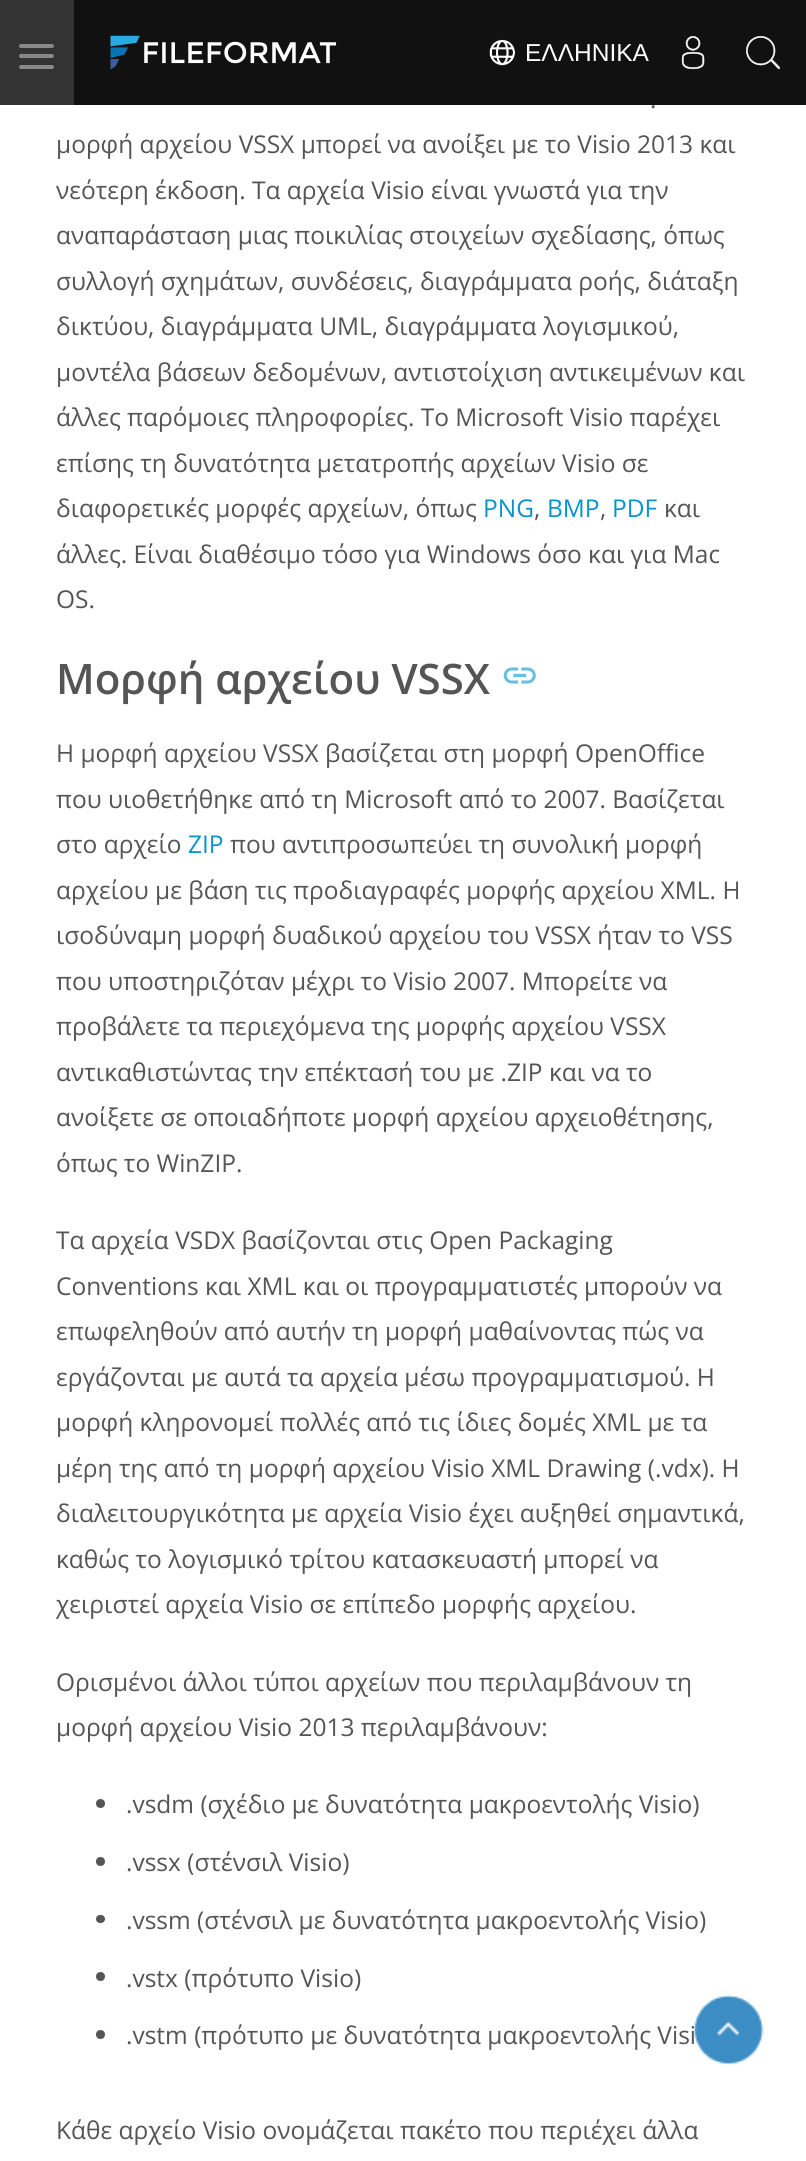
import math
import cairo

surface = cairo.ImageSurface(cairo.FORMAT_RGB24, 806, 2161)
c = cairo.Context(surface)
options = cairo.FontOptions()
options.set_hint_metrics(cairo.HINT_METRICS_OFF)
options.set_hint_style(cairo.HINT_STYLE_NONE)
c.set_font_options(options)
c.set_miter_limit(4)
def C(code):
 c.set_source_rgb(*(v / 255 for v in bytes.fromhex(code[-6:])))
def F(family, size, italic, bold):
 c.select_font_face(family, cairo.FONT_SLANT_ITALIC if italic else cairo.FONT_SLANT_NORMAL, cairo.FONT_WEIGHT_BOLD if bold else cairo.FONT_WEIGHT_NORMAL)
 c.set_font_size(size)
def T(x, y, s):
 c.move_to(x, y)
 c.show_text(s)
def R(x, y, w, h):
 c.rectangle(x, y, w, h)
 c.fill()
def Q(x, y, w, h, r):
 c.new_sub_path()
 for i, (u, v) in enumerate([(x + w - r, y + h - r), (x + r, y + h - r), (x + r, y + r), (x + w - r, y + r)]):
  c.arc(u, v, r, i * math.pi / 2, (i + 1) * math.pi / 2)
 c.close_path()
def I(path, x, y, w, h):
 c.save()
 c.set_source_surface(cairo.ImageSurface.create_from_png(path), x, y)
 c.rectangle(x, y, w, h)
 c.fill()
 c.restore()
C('ffffff')
c.paint()
C('111111')
R(74,0,732,105)
C('333333')
R(0,0,74,105)
C('888888')
Q(19,44,35,4,2)
c.fill()
Q(19,54,35,4,2)
c.fill()
Q(19,65,35,4,2)
c.fill()
I('1.png',110,35,227,35)
I('2.png',489,39,26,27)
F('Liberation Sans',24.5,0,0)
C('ffffff')
T(525,61,'ΕΛΛΗΝΙΚΑ')
I('3.png',681,36,24,34)
I('4.png',746,36,34,34)
F('Open Sans',24.5,0,0)
C('555555')
T(650,108,'.')
T(56,153,'μορφή αρχείου VSSX μπορεί να ανοίξει με το Visio 2013 και')
T(56,199,'νεότερη έκδοση. Τα αρχεία Visio είναι γνωστά για την')
T(56,244,'αναπαράσταση μιας ποικιλίας στοιχείων σχεδίασης, όπως')
T(56,290,'συλλογή σχημάτων, συνδέσεις, διαγράμματα ροής, διάταξη')
T(56,335,'δικτύου, διαγράμματα UML, διαγράμματα λογισμικού,')
T(56,381,'μοντέλα βάσεων δεδομένων, αντιστοίχιση αντικειμένων και')
T(56,426,'άλλες παρόμοιες πληροφορίες. Το Microsoft Visio παρέχει')
T(56,472,'επίσης τη δυνατότητα μετατροπής αρχείων Visio σε')
T(56,517,'διαφορετικές μορφές αρχείων, όπως')
C('0594cb')
T(483,517,'PNG')
C('555555')
T(534,517,',')
C('0594cb')
T(547,517,'BMP')
C('555555')
T(600,517,',')
C('0594cb')
T(612,517,'PDF')
C('555555')
T(664,517,'και')
T(56,563,'άλλες. Είναι διαθέσιμο τόσο για Windows όσο και για Mac')
T(56,608,'OS.')
F('Open Sans SemiBold',42,0,0)
T(56,694,'Μορφή αρχείου VSSX')
I('5.png',503,667,33,17)
F('Open Sans',24.5,0,0)
T(56,762,'Η μορφή αρχείου VSSX βασίζεται στη μορφή OpenOffice')
T(56,808,'που υιοθετήθηκε από τη Microsoft από το 2007. Βασίζεται')
T(56,853,'στο αρχείο')
C('0594cb')
T(188,853,'ZIP')
C('555555')
T(230,853,'που αντιπροσωπεύει τη συνολική μορφή')
T(56,899,'αρχείου με βάση τις προδιαγραφές μορφής αρχείου XML. Η')
T(56,944,'ισοδύναμη μορφή δυαδικού αρχείου του VSSX ήταν το VSS')
T(56,990,'που υποστηριζόταν μέχρι το Visio 2007. Μπορείτε να')
T(56,1035,'προβάλετε τα περιεχόμενα της μορφής αρχείου VSSX')
T(56,1081,'αντικαθιστώντας την επέκτασή του με .ZIP και να το')
T(56,1126,'ανοίξετε σε οποιαδήποτε μορφή αρχείου αρχειοθέτησης,')
T(56,1172,'όπως το WinZIP.')
T(56,1249,'Τα αρχεία VSDX βασίζονται στις Open Packaging')
T(56,1295,'Conventions και XML και οι προγραμματιστές μπορούν να')
T(56,1340,'επωφεληθούν από αυτήν τη μορφή μαθαίνοντας πώς να')
T(56,1386,'εργάζονται με αυτά τα αρχεία μέσω προγραμματισμού. Η')
T(56,1431,'μορφή κληρονομεί πολλές από τις ίδιες δομές XML με τα')
T(56,1477,'μέρη της από τη μορφή αρχείου Visio XML Drawing (.vdx). Η')
T(56,1522,'διαλειτουργικότητα με αρχεία Visio έχει αυξηθεί σημαντικά,')
T(56,1568,'καθώς το λογισμικό τρίτου κατασκευαστή μπορεί να')
T(56,1613,'χειριστεί αρχεία Visio σε επίπεδο μορφής αρχείου.')
T(56,1691,'Ορισμένοι άλλοι τύποι αρχείων που περιλαμβάνουν τη')
T(56,1736,'μορφή αρχείου Visio 2013 περιλαμβάνουν:')
c.new_path()
c.arc(100.5,1803.5,4.5,0,2 * math.pi)
c.fill()
T(126,1813,'.vsdm (σχέδιο με δυνατότητα μακροεντολής Visio)')
c.new_path()
c.arc(100.5,1861.5,4.5,0,2 * math.pi)
c.fill()
T(126,1871,'.vssx (στένσιλ Visio)')
Q(96,1915,9,8,4)
c.fill()
T(126,1929,'.vssm (στένσιλ με δυνατότητα μακροεντολής Visio)')
c.new_path()
c.arc(100.5,1976.5,4.5,0,2 * math.pi)
c.fill()
T(126,1987,'.vstx (πρότυπο Visio)')
c.new_path()
c.arc(100.5,2034.5,4.5,0,2 * math.pi)
c.fill()
T(126,2044,'.vstm (πρότυπο με δυνατότητα μακροεντολής Visi')
T(56,2139,'Κάθε αρχείο Visio ονομάζεται πακέτο που περιέχει άλλα')
I('6.png',694,1994,70,71)
surface.write_to_png('o.png')
